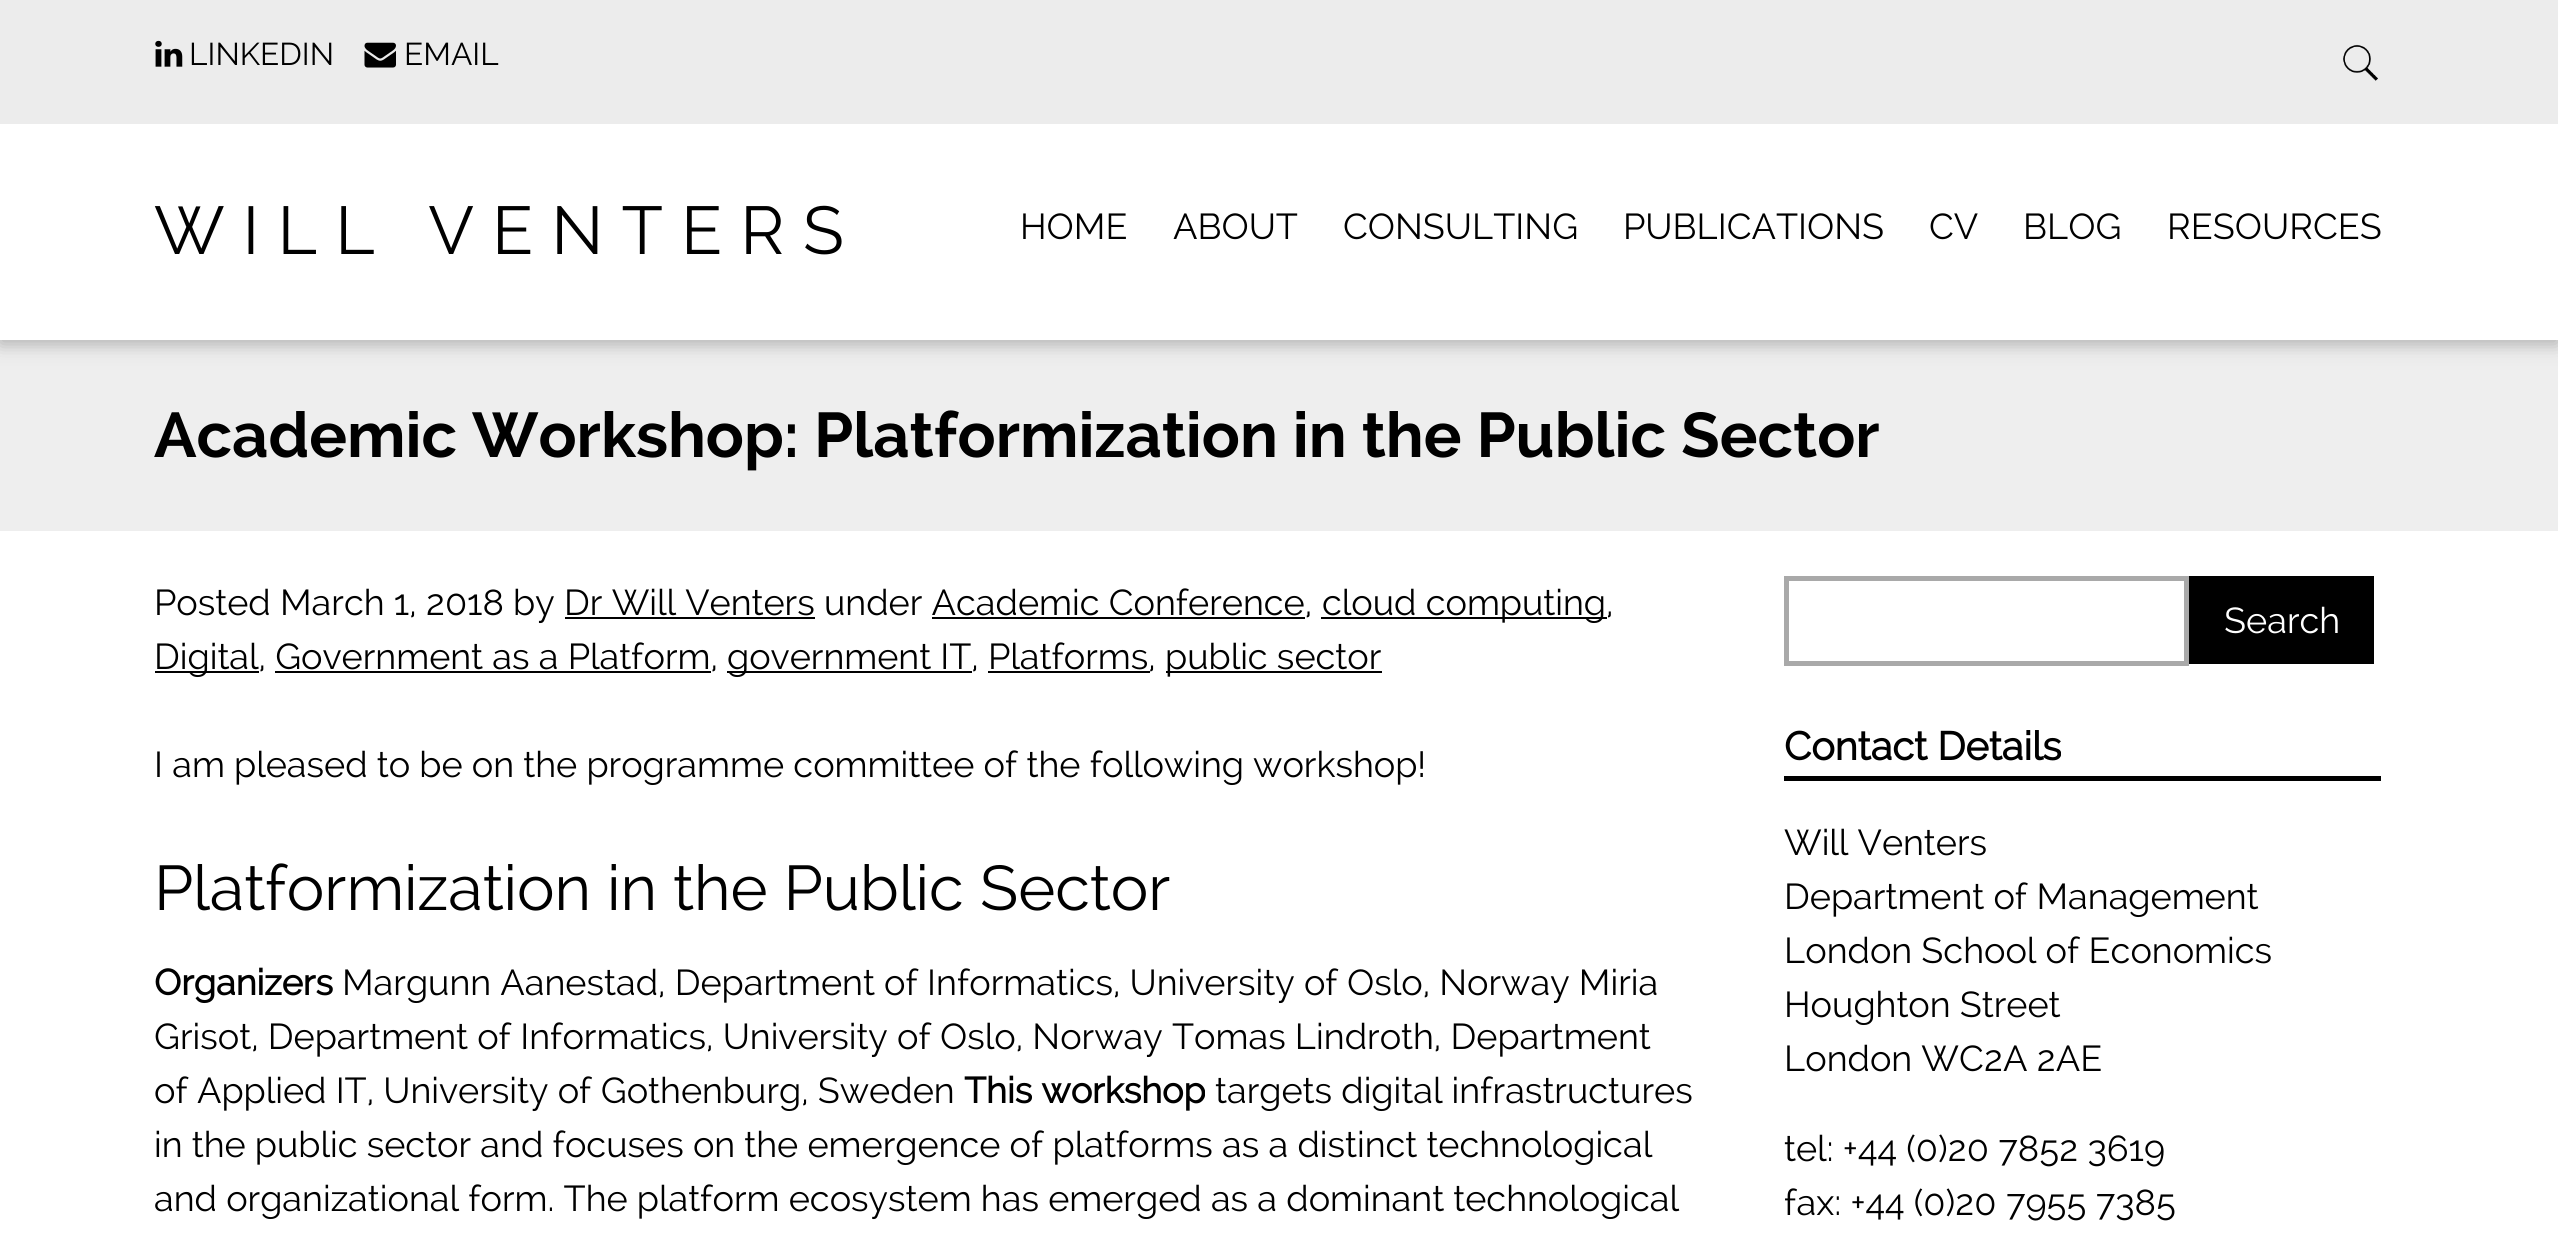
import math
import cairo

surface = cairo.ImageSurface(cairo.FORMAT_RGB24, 2558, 1243)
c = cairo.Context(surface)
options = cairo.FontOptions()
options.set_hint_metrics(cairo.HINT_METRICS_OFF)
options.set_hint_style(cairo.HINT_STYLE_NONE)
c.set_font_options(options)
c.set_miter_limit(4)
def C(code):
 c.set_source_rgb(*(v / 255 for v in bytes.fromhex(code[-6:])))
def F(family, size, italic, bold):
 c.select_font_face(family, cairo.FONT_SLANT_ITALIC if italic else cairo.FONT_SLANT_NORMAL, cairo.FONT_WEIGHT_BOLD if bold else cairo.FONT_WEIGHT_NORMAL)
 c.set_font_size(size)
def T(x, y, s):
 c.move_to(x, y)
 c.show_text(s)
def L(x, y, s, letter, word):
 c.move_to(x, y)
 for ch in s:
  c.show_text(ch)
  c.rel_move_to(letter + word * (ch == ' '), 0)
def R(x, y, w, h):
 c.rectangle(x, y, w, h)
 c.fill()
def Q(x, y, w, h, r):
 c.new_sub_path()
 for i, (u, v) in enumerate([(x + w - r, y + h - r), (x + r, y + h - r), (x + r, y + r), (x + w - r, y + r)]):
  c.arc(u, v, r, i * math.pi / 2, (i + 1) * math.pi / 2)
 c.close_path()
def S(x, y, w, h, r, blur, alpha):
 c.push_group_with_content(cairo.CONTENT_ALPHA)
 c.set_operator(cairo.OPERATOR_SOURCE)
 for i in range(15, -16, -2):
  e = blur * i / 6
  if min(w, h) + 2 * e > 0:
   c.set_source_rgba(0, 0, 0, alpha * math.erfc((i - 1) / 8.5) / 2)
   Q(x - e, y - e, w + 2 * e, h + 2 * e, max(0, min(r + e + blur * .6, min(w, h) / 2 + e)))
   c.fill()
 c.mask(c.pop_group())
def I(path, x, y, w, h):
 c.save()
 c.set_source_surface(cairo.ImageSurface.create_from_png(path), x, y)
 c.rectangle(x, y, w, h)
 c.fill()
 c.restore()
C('ffffff')
c.paint()
C('eeeeee')
R(0,340,2558,191)
c.save()
c.set_fill_rule(cairo.FILL_RULE_EVEN_ODD)
c.new_path()
c.move_to(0,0)
c.line_to(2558,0)
c.line_to(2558,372)
c.line_to(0,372)
c.close_path()
c.move_to(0,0)
c.line_to(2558,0)
c.line_to(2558,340)
c.line_to(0,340)
c.close_path()
c.clip()
C('aeaeae')
S(0,5,2558,339,0,9,1)
c.restore()
C('ececec')
R(0,0,2558,124)
I('1.png',155,40,28,27)
F('Raleway',31.5,0,0)
C('000000')
T(189,65,'LINKEDIN')
I('2.png',364,42,32,26)
T(404,65,'EMAIL')
I('3.png',2343,44,35,37)
F('Raleway',67.5,0,0)
L(154,254,'WILL VENTERS',18,0)
F('Raleway',36,0,0)
T(1020,239,'HOME')
T(1173,239,'ABOUT')
T(1343,239,'CONSULTING')
T(1623,239,'PUBLICATIONS')
T(1929,239,'CV')
T(2023,239,'BLOG')
T(2167,239,'RESOURCES')
F('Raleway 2',63,0,1)
T(154,457,'Academic Workshop: Platformization in the Public Sector')
F('Raleway',36,0,0)
T(154,615,'Posted March 1, 2018 by Dr Will Venters under Academic Conference,')
R(1321,617,286,2)
T(1322,615,'cloud computing,')
R(565,617,250,2)
R(932,617,373,2)
R(155,671,104,2)
T(154,669,'Digital, Government as a Platform,')
R(727,671,245,2)
T(727,669,'government IT, Platforms,')
R(1166,671,216,2)
T(1165,669,'public sector')
R(275,671,436,2)
R(988,671,162,2)
T(154,777,'I am pleased to be on the programme committee of the following workshop!')
F('Raleway',63,0,0)
T(154,910,'Platformization in the Public Sector')
F('Raleway',36,0,1)
T(154,995,'Organizers')
F('Raleway',36,0,0)
T(342,995,'Margunn Aanestad, Department of Informatics, University of Oslo, Norway Miria')
T(154,1049,'Grisot, Department of Informatics, University of Oslo, Norway Tomas Lindroth, Department')
T(154,1103,'of Applied IT, University of Gothenburg, Sweden')
F('Raleway',36,0,1)
T(964,1103,'This workshop')
F('Raleway',36,0,0)
T(1215,1103,'targets digital infrastructures')
T(154,1157,'in the public sector and focuses on the emergence of platforms as a distinct technological')
T(154,1211,'and organizational form. The platform ecosystem has emerged as a dominant technological')
c.rectangle(1786.5,578.5,400,85)
C('a9a9a9')
c.set_line_width(5)
c.stroke()
C('000000')
R(2189,576,185,88)
C('ffffff')
T(2224,633,'Search')
C('000000')
R(1784,776,597,5)
F('Raleway',39.5,0,1)
T(1784,760,'Contact Details')
F('Raleway',36,0,0)
T(1784,855,'Will Venters')
T(1784,909,'Department of Management')
T(1784,963,'London School of Economics')
T(1784,1017,'Houghton Street')
T(1784,1071,'London WC2A 2AE')
T(1784,1161,'tel: +44 (0)20 7852 3619')
T(1784,1215,'fax: +44 (0)20 7955 7385')
surface.write_to_png('o.png')
